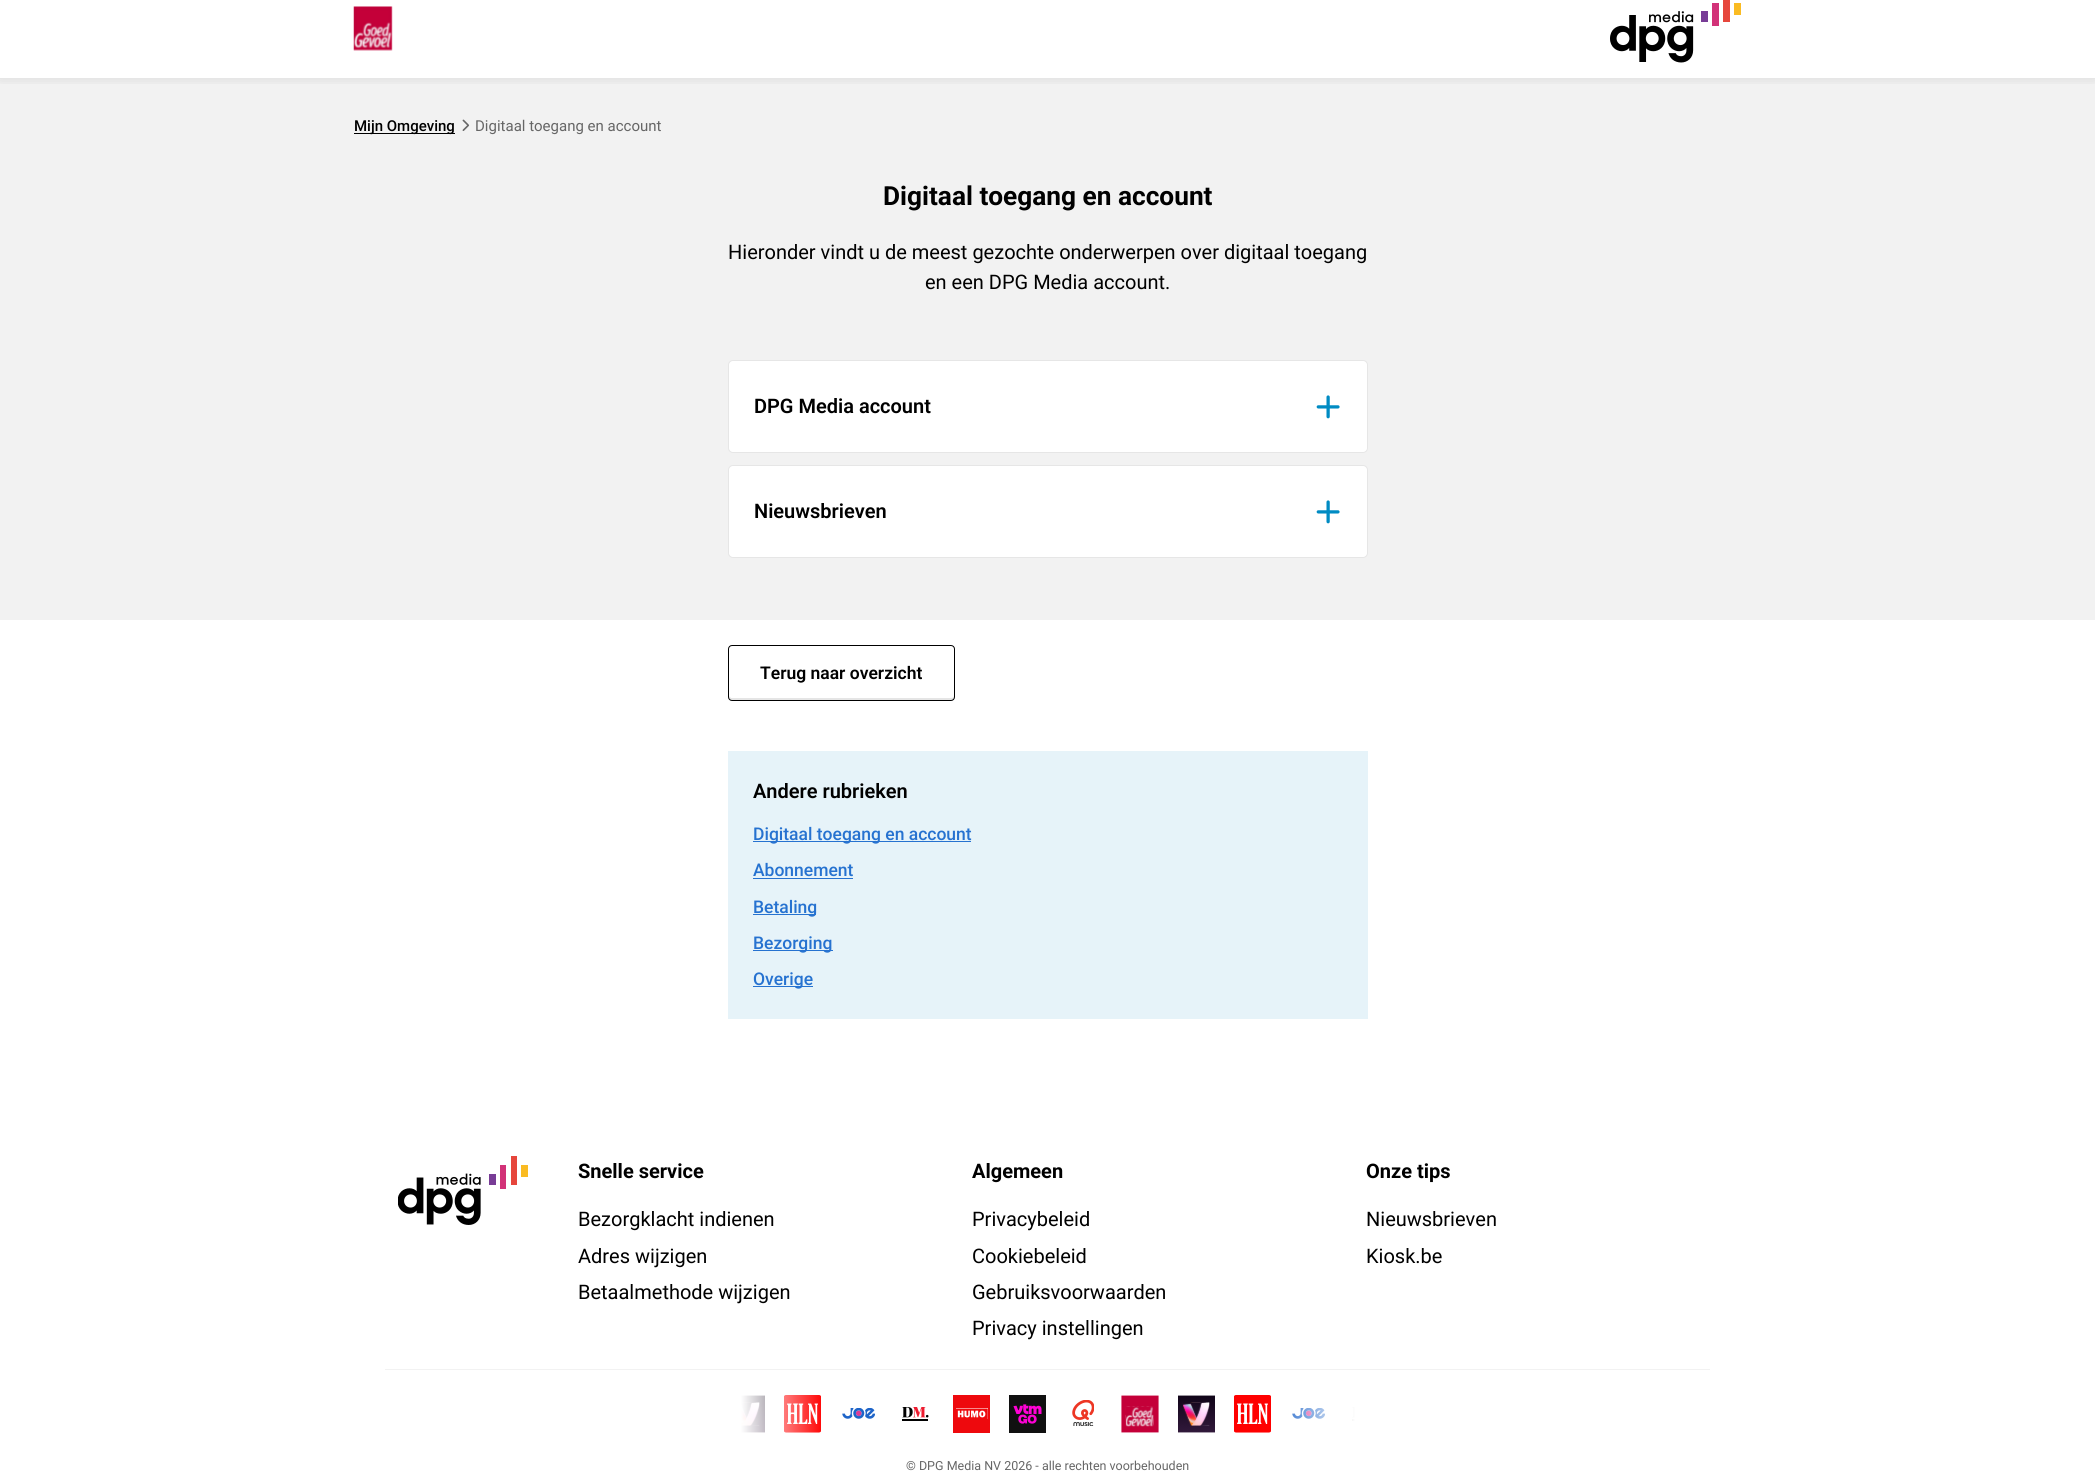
import math
import cairo

surface = cairo.ImageSurface(cairo.FORMAT_RGB24, 2095, 1483)
c = cairo.Context(surface)
options = cairo.FontOptions()
options.set_hint_metrics(cairo.HINT_METRICS_OFF)
options.set_hint_style(cairo.HINT_STYLE_NONE)
c.set_font_options(options)
c.set_miter_limit(4)
def C(code):
 c.set_source_rgb(*(v / 255 for v in bytes.fromhex(code[-6:])))
def F(family, size, italic, bold):
 c.select_font_face(family, cairo.FONT_SLANT_ITALIC if italic else cairo.FONT_SLANT_NORMAL, cairo.FONT_WEIGHT_BOLD if bold else cairo.FONT_WEIGHT_NORMAL)
 c.set_font_size(size)
def T(x, y, s):
 c.move_to(x, y)
 c.show_text(s)
def R(x, y, w, h):
 c.rectangle(x, y, w, h)
 c.fill()
def Q(x, y, w, h, r):
 c.new_sub_path()
 for i, (u, v) in enumerate([(x + w - r, y + h - r), (x + r, y + h - r), (x + r, y + r), (x + w - r, y + r)]):
  c.arc(u, v, r, i * math.pi / 2, (i + 1) * math.pi / 2)
 c.close_path()
def S(x, y, w, h, r, blur, alpha):
 c.push_group_with_content(cairo.CONTENT_ALPHA)
 c.set_operator(cairo.OPERATOR_SOURCE)
 for i in range(15, -16, -2):
  e = blur * i / 6
  if min(w, h) + 2 * e > 0:
   c.set_source_rgba(0, 0, 0, alpha * math.erfc((i - 1) / 8.5) / 2)
   Q(x - e, y - e, w + 2 * e, h + 2 * e, max(0, min(r + e + blur * .6, min(w, h) / 2 + e)))
   c.fill()
 c.mask(c.pop_group())
def I(path, x, y, w, h):
 c.save()
 c.set_source_surface(cairo.ImageSurface.create_from_png(path), x, y)
 c.rectangle(x, y, w, h)
 c.fill()
 c.restore()
C('ffffff')
c.paint()
C('f2f2f2')
R(0,79,2095,541)
c.save()
c.rectangle(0,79,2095,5)
c.clip()
C('000000')
S(0,-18,2095,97,0,6,.1)
c.restore()
C('e6e6e6')
R(0,78,2095,1)
I('1.png',353,6,40,45)
I('2.png',1610,0,131,63)
C('000000')
R(354,133,101,1)
F('Roboto Medium',15,0,0)
T(354,131,'Mijn Omgeving')
I('3.png',462,119,8,12)
F('Roboto',15,0,0)
C('666666')
T(475,131,'Digitaal toegang en account')
F('Roboto',26.25,0,1)
C('000000')
T(883,205,'Digitaal toegang en account')
F('Roboto',20,0,0)
T(728,259,'Hieronder vindt u de meest gezochte onderwerpen over digitaal toegang')
T(925,289,'en een DPG Media account.')
C('ffffff')
Q(728.5,360.5,639,92,4.5)
c.fill_preserve()
C('e6e6e6')
c.set_line_width(1)
c.stroke()
F('Roboto SemiBold',20,0,0)
C('000000')
T(754,413,'DPG Media account')
I('4.png',1316,395,24,24)
C('ffffff')
Q(728.5,465.5,639,92,4.5)
c.fill_preserve()
C('e6e6e6')
c.stroke()
C('000000')
T(754,518,'Nieuwsbrieven')
I('4.png',1316,500,24,24)
C('e5e5e5')
c.new_path()
c.move_to(729,695)
c.curve_to(729,697,729,699,731,700)
c.line_to(952,700)
c.curve_to(954,700,954,697,954,695)
c.curve_to(954,697,953,698,951,698)
c.line_to(731,698)
c.line_to(729,696)
c.close_path()
c.fill()
Q(728.5,645.5,226,55,3.5)
C('000000')
c.stroke()
F('Roboto SemiBold',17.5,0,0)
T(760,679,'Terug naar overzicht')
C('e6f3f9')
R(728,751,640,268)
F('Roboto SemiBold',20,0,0)
C('000000')
T(753,798,'Andere rubrieken')
C('2672d0')
R(753,841,218,1)
F('Roboto Medium',17.5,0,0)
T(753,840,'Digitaal toegang en account')
T(753,876,'Abonnement')
R(753,878,100,1)
R(753,914,63,1)
T(753,913,'Betaling')
R(753,950,80,1)
T(753,949,'Bezorging')
R(753,986,60,1)
T(753,985,'Overige')
C('f2f2f2')
R(385,1369,1325,1)
I('5.png',398,1156,130,69)
F('Roboto',20,0,1)
C('000000')
T(578,1178,'Snelle service')
F('Roboto',20,0,0)
T(578,1226,'Bezorgklacht indienen')
T(578,1263,'Adres wijzigen')
T(578,1299,'Betaalmethode wijzigen')
F('Roboto',20,0,1)
T(972,1178,'Algemeen')
F('Roboto',20,0,0)
T(972,1226,'Privacybeleid')
T(972,1263,'Cookiebeleid')
T(972,1299,'Gebruiksvoorwaarden')
T(972,1335,'Privacy instellingen')
F('Roboto',20,0,1)
T(1366,1178,'Onze tips')
F('Roboto',20,0,0)
T(1366,1226,'Nieuwsbrieven')
T(1366,1263,'Kiosk.be')
I('6.png',741,1395,24,38)
I('7.png',784,1395,37,38)
I('8.png',842,1408,33,11)
I('9.png',902,1407,27,14)
I('10.png',953,1395,37,38)
I('11.png',1009,1395,37,38)
I('12.png',1072,1400,22,26)
I('13.png',1121,1395,38,38)
I('14.png',1178,1395,37,38)
I('7.png',1234,1395,37,38)
I('8.png',1292,1408,33,11)
I('15.png',1352,1407,3,14)
gradient = cairo.LinearGradient(1368,1414,728,1414)
gradient.add_color_stop_rgba(.02,1,1,1,1)
gradient.add_color_stop_rgba(.15,1,1,1,0)
gradient.add_color_stop_rgba(.85,1,1,1,0)
gradient.add_color_stop_rgba(.98,1,1,1,1)
c.set_source(gradient)
R(741,1395,614,38)
F('Roboto',12.5,0,0)
C('666666')
T(906,1470,'© DPG Media NV 2026 - alle rechten voorbehouden')
surface.write_to_png('o.png')
